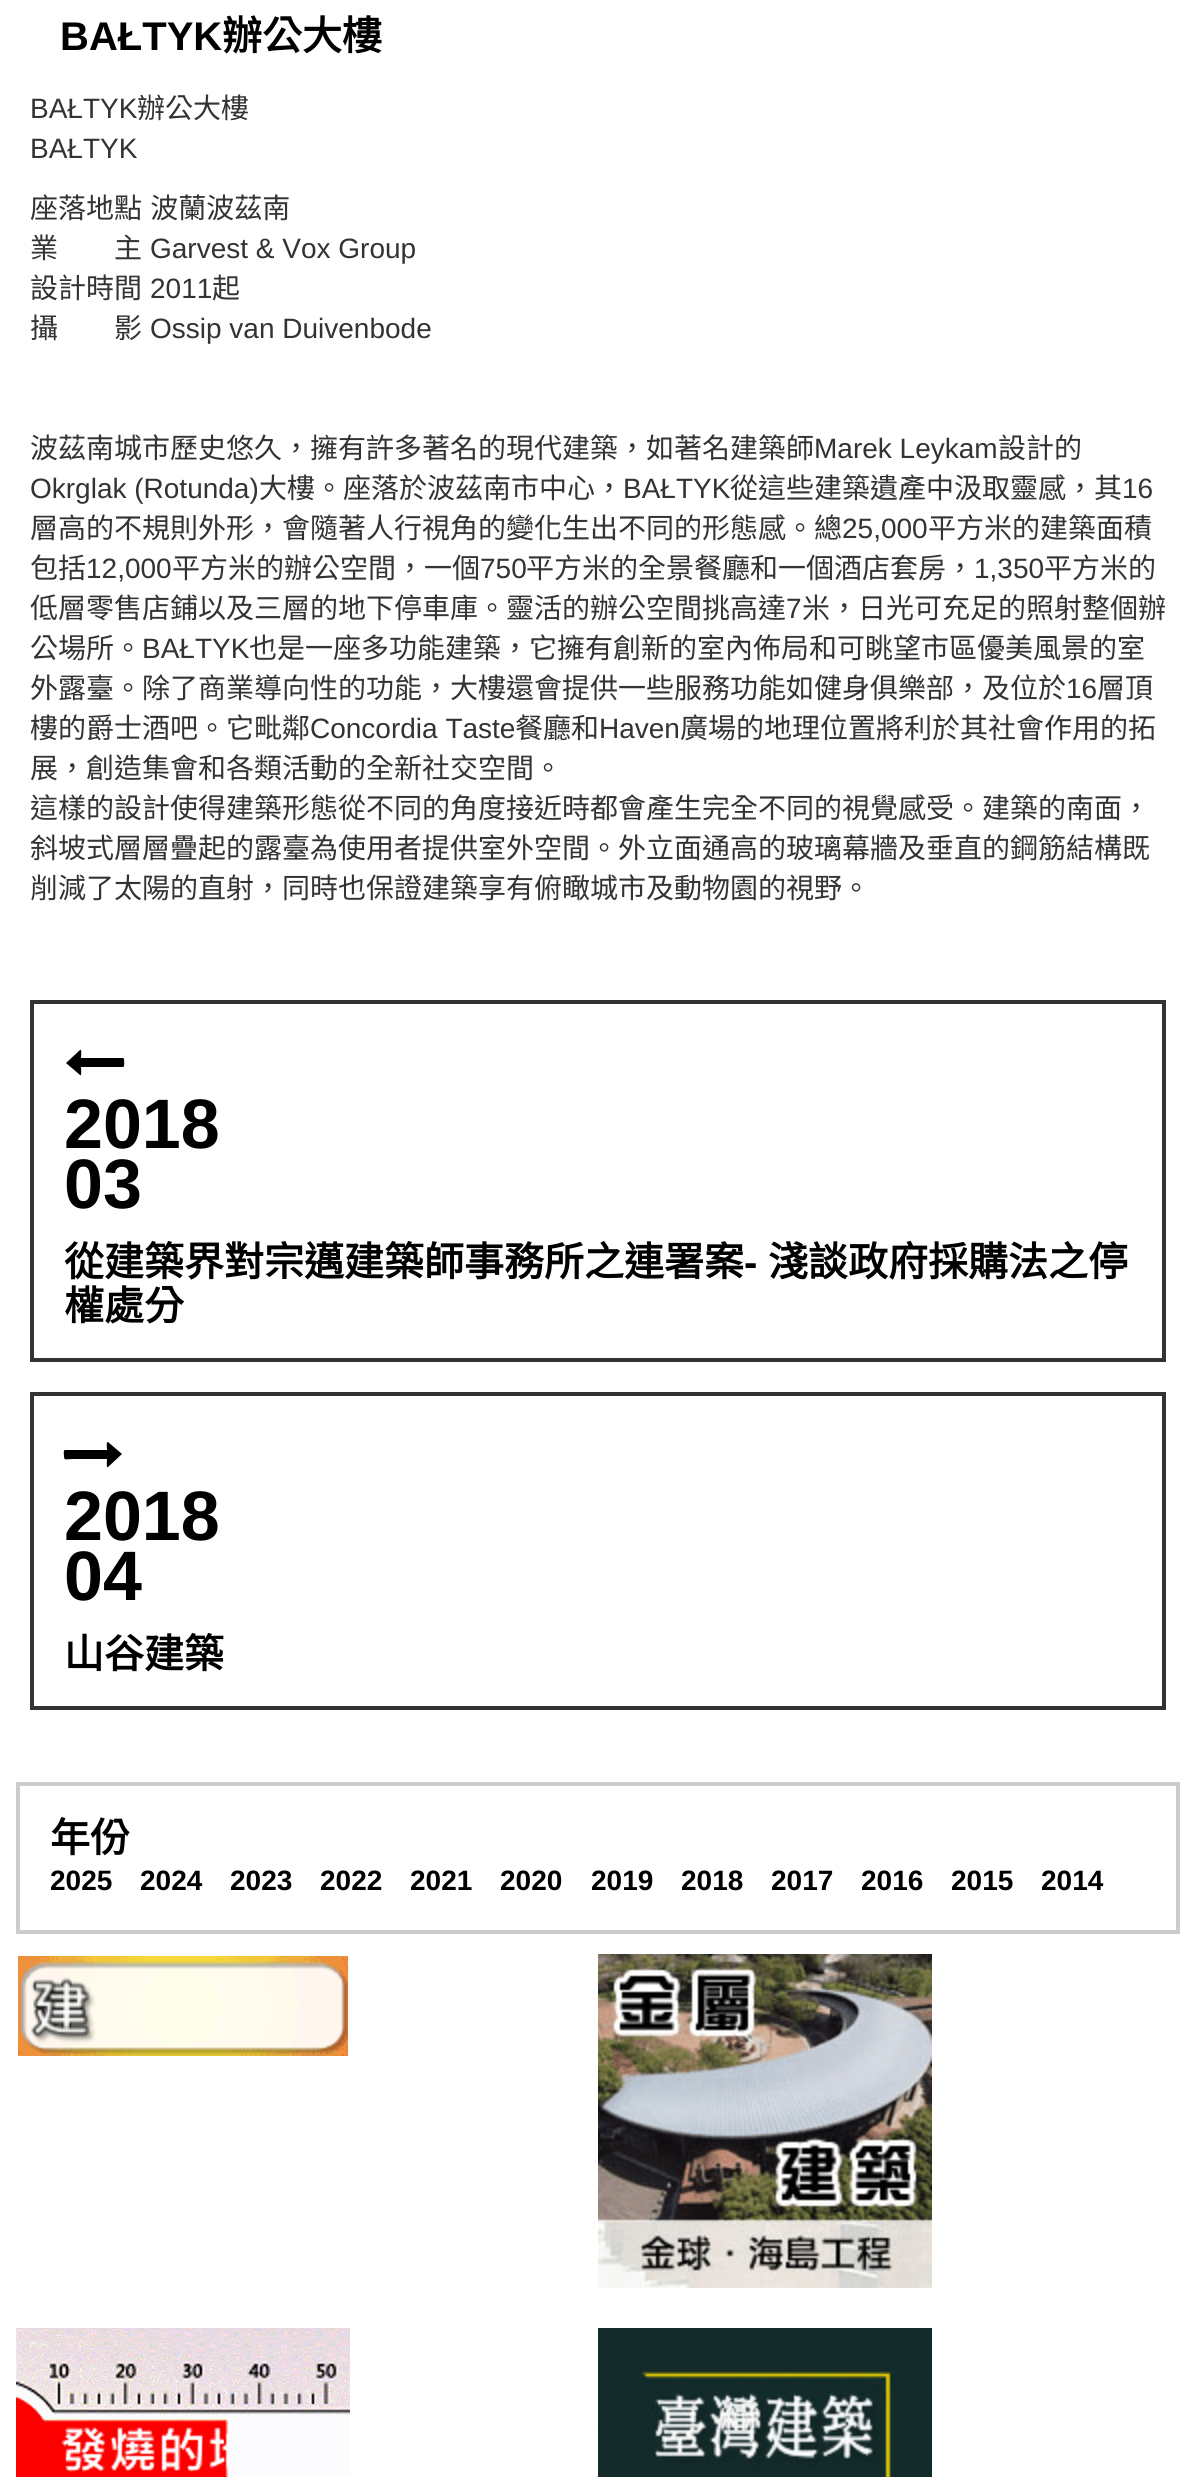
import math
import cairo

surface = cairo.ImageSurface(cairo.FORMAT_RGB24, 1196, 2477)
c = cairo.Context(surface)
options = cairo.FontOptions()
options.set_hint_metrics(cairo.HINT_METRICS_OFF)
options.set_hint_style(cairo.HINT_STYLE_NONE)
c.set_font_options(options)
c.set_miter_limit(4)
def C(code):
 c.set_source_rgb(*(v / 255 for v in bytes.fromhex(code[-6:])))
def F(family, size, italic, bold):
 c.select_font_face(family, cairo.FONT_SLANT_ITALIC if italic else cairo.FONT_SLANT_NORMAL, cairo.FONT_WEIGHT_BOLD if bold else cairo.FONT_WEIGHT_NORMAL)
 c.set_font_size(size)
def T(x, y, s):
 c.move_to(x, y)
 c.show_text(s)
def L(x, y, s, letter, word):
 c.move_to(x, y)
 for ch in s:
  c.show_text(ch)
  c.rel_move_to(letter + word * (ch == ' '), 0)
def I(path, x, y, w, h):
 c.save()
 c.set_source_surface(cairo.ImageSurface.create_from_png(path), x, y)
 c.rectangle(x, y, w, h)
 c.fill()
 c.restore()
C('ffffff')
c.paint()
F('Liberation Sans',40,0,1)
C('000000')
T(60,50,'BAŁTYK')
F('Noto Sans CJK TC',40,0,1)
T(222,50,'辦公大樓')
F('Liberation Sans',28,0,0)
C('333333')
T(30,118,'BAŁTYK')
F('Noto Sans CJK TC',28,0,0)
T(137,118,'辦公大樓')
F('Liberation Sans',28,0,0)
T(30,158,'BAŁTYK')
F('Noto Sans CJK TC',28,0,0)
L(30,218,'座落地點 波蘭波茲南',0,2)
T(30,258,'業　　主')
F('Liberation Sans',28,0,0)
T(150,258,'Garvest & Vox Group')
F('Noto Sans CJK TC',28,0,0)
T(30,298,'設計時間')
F('Liberation Sans',28,0,0)
T(150,298,'2011')
F('Noto Sans CJK TC',28,0,0)
T(212,298,'起')
T(30,338,'攝　　影')
F('Liberation Sans',28,0,0)
T(150,338,'Ossip van Duivenbode')
F('Noto Sans CJK TC',28,0,0)
T(30,458,'波茲南城市歷史悠久，擁有許多著名的現代建築，如著名建築師')
F('Liberation Sans',28,0,0)
T(814,458,'Marek Leykam')
F('Noto Sans CJK TC',28,0,0)
T(998,458,'設計的')
F('Liberation Sans',28,0,0)
T(30,498,'Okrglak (Rotunda)')
F('Noto Sans CJK TC',28,0,0)
T(259,498,'大樓。座落於波茲南市中心，')
F('Liberation Sans',28,0,0)
T(623,498,'BAŁTYK')
F('Noto Sans CJK TC',28,0,0)
T(730,498,'從這些建築遺產中汲取靈感，其')
F('Liberation Sans',28,0,0)
T(1122,498,'16')
F('Noto Sans CJK TC',28,0,0)
T(30,538,'層高的不規則外形，會隨著人行視角的變化生出不同的形態感。總')
F('Liberation Sans',28,0,0)
T(842,538,'25,000')
F('Noto Sans CJK TC',28,0,0)
T(928,538,'平方米的建築面積')
T(30,578,'包括')
F('Liberation Sans',28,0,0)
T(86,578,'12,000')
F('Noto Sans CJK TC',28,0,0)
T(172,578,'平方米的辦公空間，一個')
F('Liberation Sans',28,0,0)
T(480,578,'750')
F('Noto Sans CJK TC',28,0,0)
T(526,578,'平方米的全景餐廳和一個酒店套房，')
F('Liberation Sans',28,0,0)
T(974,578,'1,350')
F('Noto Sans CJK TC',28,0,0)
T(1044,578,'平方米的')
T(30,618,'低層零售店鋪以及三層的地下停車庫。靈活的辦公空間挑高達')
F('Liberation Sans',28,0,0)
T(786,618,'7')
F('Noto Sans CJK TC',28,0,0)
T(802,618,'米，日光可充足的照射整個辦')
T(30,658,'公場所。')
F('Liberation Sans',28,0,0)
T(142,658,'BAŁTYK')
F('Noto Sans CJK TC',28,0,0)
T(249,658,'也是一座多功能建築，它擁有創新的室內佈局和可眺望市區優美風景的室')
T(30,698,'外露臺。除了商業導向性的功能，大樓還會提供一些服務功能如健身俱樂部，及位於')
F('Liberation Sans',28,0,0)
T(1066,698,'16')
F('Noto Sans CJK TC',28,0,0)
T(1097,698,'層頂')
T(30,738,'樓的爵士酒吧。它毗鄰')
F('Liberation Sans',28,0,0)
T(310,738,'Concordia Taste')
F('Noto Sans CJK TC',28,0,0)
T(515,738,'餐廳和')
F('Liberation Sans',28,0,0)
T(599,738,'Haven')
F('Noto Sans CJK TC',28,0,0)
T(680,738,'廣場的地理位置將利於其社會作用的拓')
T(30,778,'展，創造集會和各類活動的全新社交空間。')
T(30,818,'這樣的設計使得建築形態從不同的角度接近時都會產生完全不同的視覺感受。建築的南面，')
T(30,858,'斜坡式層層疊起的露臺為使用者提供室外空間。外立面通高的玻璃幕牆及垂直的鋼筋結構既')
T(30,898,'削減了太陽的直射，同時也保證建築享有俯瞰城市及動物園的視野。')
c.rectangle(32,1002,1132,358)
c.set_line_width(4)
c.stroke()
C('000000')
c.new_path()
c.move_to(124,1059)
c.curve_to(124,1060,125,1067,123,1067)
c.line_to(81,1067)
c.curve_to(81,1068,82,1077,80,1075)
c.line_to(66,1063)
c.line_to(80,1050)
c.curve_to(82,1048,81,1057,81,1058)
c.line_to(123,1058)
c.close_path()
c.fill()
F('Liberation Sans',70,0,1)
T(64,1148,'2018')
T(64,1208,'03')
F('Noto Sans CJK TC',40,0,1)
T(64,1276,'從建築界對宗邁建築師事務所之連署案')
F('Liberation Sans',40,0,1)
T(744,1276,'-')
F('Noto Sans CJK TC',40,0,1)
T(768,1276,'淺談政府採購法之停')
T(64,1320,'權處分')
c.rectangle(32,1394,1132,314)
C('333333')
c.stroke()
C('000000')
c.new_path()
c.move_to(122,1454)
c.line_to(108,1467)
c.curve_to(106,1469,107,1460,107,1459)
c.line_to(72,1459)
c.curve_to(66,1459,64,1461,64,1456)
c.curve_to(64,1455,63,1450,65,1450)
c.line_to(107,1450)
c.curve_to(107,1449,106,1441,108,1442)
c.close_path()
c.fill()
F('Liberation Sans',70,0,1)
T(64,1540,'2018')
T(64,1600,'04')
F('Noto Sans CJK TC',40,0,1)
T(64,1668,'山谷建築')
c.rectangle(18,1784,1160,148)
C('cccccc')
c.stroke()
C('000000')
T(50,1852,'年份')
F('Liberation Sans',28,0,1)
T(50,1890,'2025')
T(140,1890,'2024')
T(230,1890,'2023')
T(320,1890,'2022')
T(410,1890,'2021')
T(500,1890,'2020')
T(591,1890,'2019')
T(681,1890,'2018')
T(771,1890,'2017')
T(861,1890,'2016')
T(951,1890,'2015')
T(1041,1890,'2014')
I('1.png',18,1956,330,100)
I('2.png',598,1954,334,334)
I('3.png',16,2328,334,149)
I('4.png',598,2328,334,149)
surface.write_to_png('o.png')
